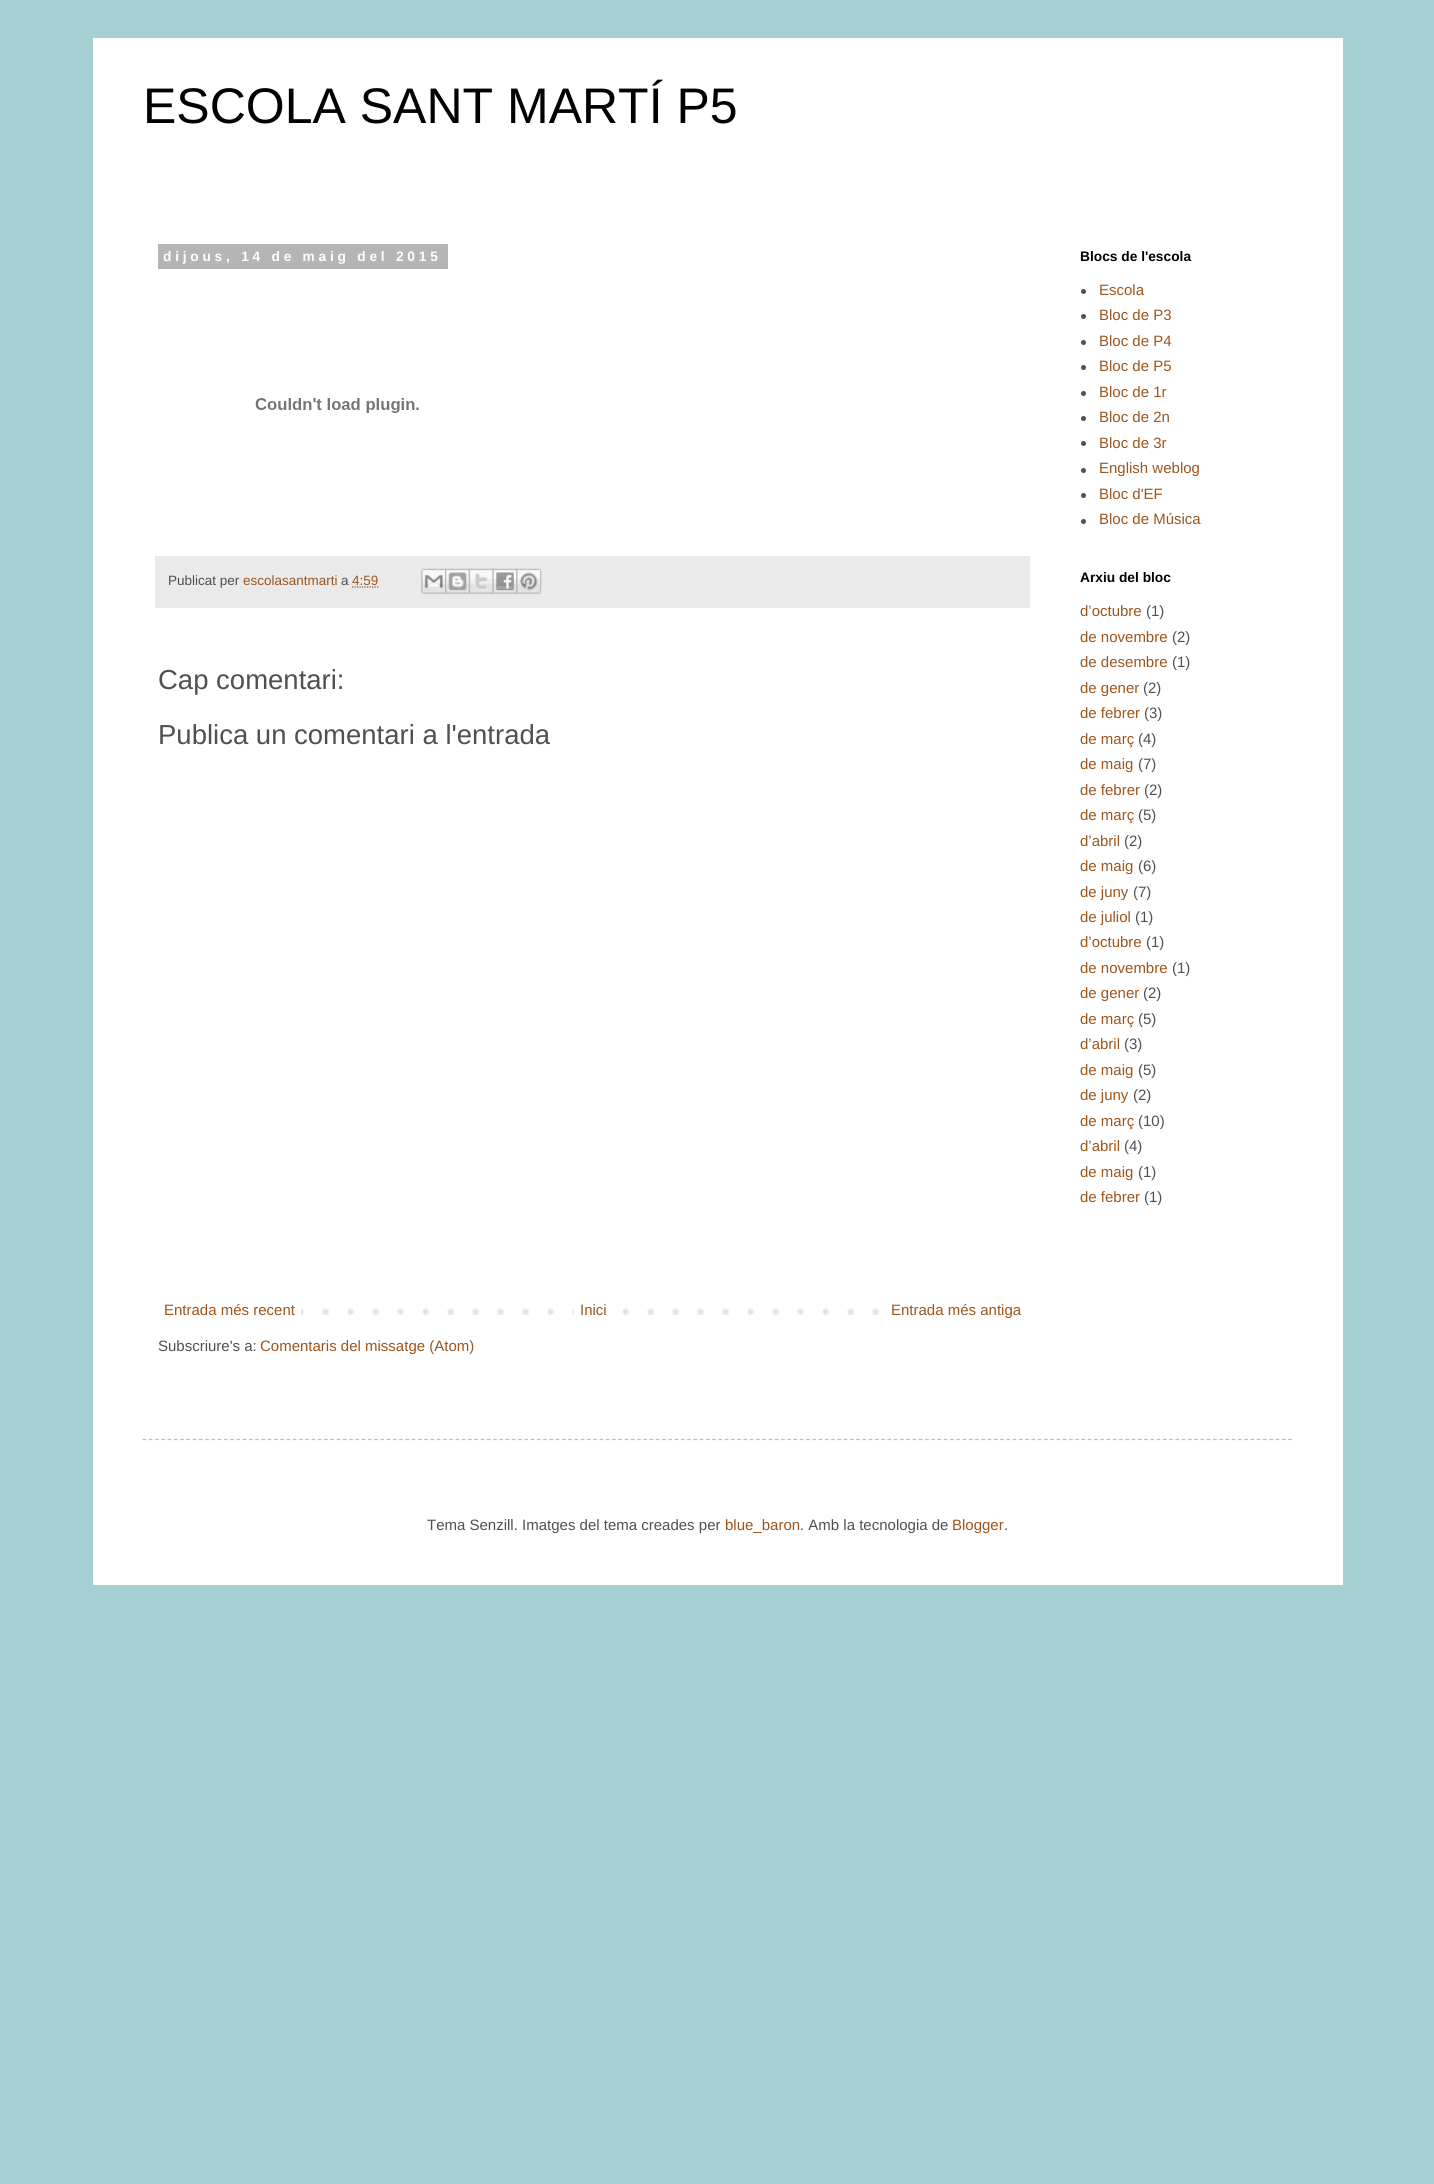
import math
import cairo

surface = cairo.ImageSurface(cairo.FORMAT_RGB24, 1434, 2184)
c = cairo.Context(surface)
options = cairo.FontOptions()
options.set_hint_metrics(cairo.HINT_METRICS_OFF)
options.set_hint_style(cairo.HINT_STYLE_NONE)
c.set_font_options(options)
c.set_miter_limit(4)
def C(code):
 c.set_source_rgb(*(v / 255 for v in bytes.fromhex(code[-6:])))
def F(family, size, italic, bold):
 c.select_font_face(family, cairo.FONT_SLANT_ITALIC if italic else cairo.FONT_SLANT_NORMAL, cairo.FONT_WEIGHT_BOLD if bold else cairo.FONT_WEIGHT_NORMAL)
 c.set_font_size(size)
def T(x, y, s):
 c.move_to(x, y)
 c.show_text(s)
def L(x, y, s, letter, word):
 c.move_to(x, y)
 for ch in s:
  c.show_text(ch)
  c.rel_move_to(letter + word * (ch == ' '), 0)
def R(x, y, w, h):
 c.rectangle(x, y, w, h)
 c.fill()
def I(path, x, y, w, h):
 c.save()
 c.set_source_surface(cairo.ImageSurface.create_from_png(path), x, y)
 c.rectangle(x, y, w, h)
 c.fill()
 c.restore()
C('a6cfd4')
c.paint()
C('ffffff')
R(93,38,1250,1547)
F('Liberation Sans',50,0,0)
C('000000')
T(143,123,'ESCOLA SANT MARTÍ P5')
C('b5b5b5')
R(158,244,290,25)
F('Liberation Sans',13.75,0,1)
C('ffffff')
L(163,261,'dijous, 14 de maig del 2015',3.75,0)
I('1.png',255,398,164,15)
C('eaeaea')
R(155,556,875,52)
F('Liberation Sans',13.5,0,0)
C('505050')
T(168,585,'Publicat per')
C('9d551c')
T(243,585,'escolasantmarti')
C('505050')
T(341,585,'a')
C('9d551c')
T(352,585,'4:59')
c.new_path()
c.move_to(352,587)
c.line_to(378.5,587)
c.set_line_width(1.2)
c.set_dash([1.25,1.25])
c.stroke()
I('2.png',421,568,26,26)
I('3.png',445,568,25,26)
I('4.png',468,568,26,26)
I('5.png',492,568,26,26)
I('6.png',516,568,26,26)
F('Liberation Sans',27.5,0,0)
C('505050')
T(158,689,'Cap comentari:')
T(158,744,'Publica un comentari a l\'entrada')
I('7.png',301,1308,578,7)
F('Liberation Sans',15,0,0)
C('9d551c')
T(164,1315,'Entrada més recent')
C('ffffff')
R(574,1308,31,7)
C('9d551c')
T(580,1315,'Inici')
T(891,1315,'Entrada més antiga')
C('505050')
T(158,1351,'Subscriure\'s a:')
C('9d551c')
T(260,1351,'Comentaris del missatge (Atom)')
F('Liberation Sans',13.75,0,1)
C('000000')
T(1080,261,'Blocs de l\'escola')
C('505050')
c.new_path()
c.arc(1083.5,291.5,2.5,0,2 * math.pi)
c.fill()
F('Liberation Sans',15,0,0)
C('9d551c')
T(1099,295,'Escola')
C('505050')
c.new_path()
c.arc(1083.5,316.5,2.5,0,2 * math.pi)
c.fill()
C('9d551c')
T(1099,320,'Bloc de P3')
C('505050')
c.new_path()
c.arc(1083.5,342.5,2.5,0,2 * math.pi)
c.fill()
C('9d551c')
T(1099,346,'Bloc de P4')
C('505050')
c.new_path()
c.arc(1083.5,367.5,2.5,0,2 * math.pi)
c.fill()
C('9d551c')
T(1099,371,'Bloc de P5')
C('505050')
c.new_path()
c.arc(1083.5,393.5,2.5,0,2 * math.pi)
c.fill()
C('9d551c')
T(1099,397,'Bloc de 1r')
C('505050')
c.new_path()
c.arc(1083.5,418.5,2.5,0,2 * math.pi)
c.fill()
C('9d551c')
T(1099,422,'Bloc de 2n')
C('505050')
c.new_path()
c.arc(1083.5,443.5,2.5,0,2 * math.pi)
c.fill()
C('9d551c')
T(1099,448,'Bloc de 3r')
C('505050')
c.new_path()
c.arc(1083.5,470.5,2.5,0,2 * math.pi)
c.fill()
C('9d551c')
T(1099,473,'English weblog')
C('505050')
c.new_path()
c.arc(1083.5,495.5,2.5,0,2 * math.pi)
c.fill()
C('9d551c')
T(1099,499,'Bloc d\'EF')
C('505050')
c.new_path()
c.arc(1083.5,521.5,2.5,0,2 * math.pi)
c.fill()
C('9d551c')
T(1099,524,'Bloc de Música')
F('Liberation Sans',13.75,0,1)
C('000000')
T(1080,582,'Arxiu del bloc')
F('Liberation Sans',15,0,0)
C('9d551c')
T(1080,616,'d’octubre')
C('505050')
T(1146,616,'(1)')
C('9d551c')
T(1080,642,'de novembre')
C('505050')
T(1172,642,'(2)')
C('9d551c')
T(1080,667,'de desembre')
C('505050')
T(1172,667,'(1)')
C('9d551c')
T(1080,693,'de gener')
C('505050')
T(1143,693,'(2)')
C('9d551c')
T(1080,718,'de febrer')
C('505050')
T(1144,718,'(3)')
C('9d551c')
T(1080,744,'de març')
C('505050')
T(1138,744,'(4)')
C('9d551c')
T(1080,769,'de maig')
C('505050')
T(1138,769,'(7)')
C('9d551c')
T(1080,795,'de febrer')
C('505050')
T(1144,795,'(2)')
C('9d551c')
T(1080,820,'de març')
C('505050')
T(1138,820,'(5)')
C('9d551c')
T(1080,846,'d’abril')
C('505050')
T(1124,846,'(2)')
C('9d551c')
T(1080,871,'de maig')
C('505050')
T(1138,871,'(6)')
C('9d551c')
T(1080,897,'de juny')
C('505050')
T(1133,897,'(7)')
C('9d551c')
T(1080,922,'de juliol')
C('505050')
T(1135,922,'(1)')
C('9d551c')
T(1080,947,'d’octubre')
C('505050')
T(1146,947,'(1)')
C('9d551c')
T(1080,973,'de novembre')
C('505050')
T(1172,973,'(1)')
C('9d551c')
T(1080,998,'de gener')
C('505050')
T(1143,998,'(2)')
C('9d551c')
T(1080,1024,'de març')
C('505050')
T(1138,1024,'(5)')
C('9d551c')
T(1080,1049,'d’abril')
C('505050')
T(1124,1049,'(3)')
C('9d551c')
T(1080,1075,'de maig')
C('505050')
T(1138,1075,'(5)')
C('9d551c')
T(1080,1100,'de juny')
C('505050')
T(1133,1100,'(2)')
C('9d551c')
T(1080,1126,'de març')
C('505050')
T(1138,1126,'(10)')
C('9d551c')
T(1080,1151,'d’abril')
C('505050')
T(1124,1151,'(4)')
C('9d551c')
T(1080,1177,'de maig')
C('505050')
T(1138,1177,'(1)')
C('9d551c')
T(1080,1202,'de febrer')
C('505050')
T(1144,1202,'(1)')
c.new_path()
c.move_to(142.5,1439.5)
c.line_to(1292.5,1439.5)
C('bbbbbb')
c.set_dash([3.75,2.51])
c.stroke()
C('505050')
T(427,1530,'Tema Senzill. Imatges del tema creades per')
C('9d551c')
T(725,1530,'blue_baron')
C('505050')
T(800,1530,'. Amb la tecnologia de')
C('9d551c')
T(952,1530,'Blogger')
C('505050')
T(1004,1530,'.')
surface.write_to_png('o.png')
